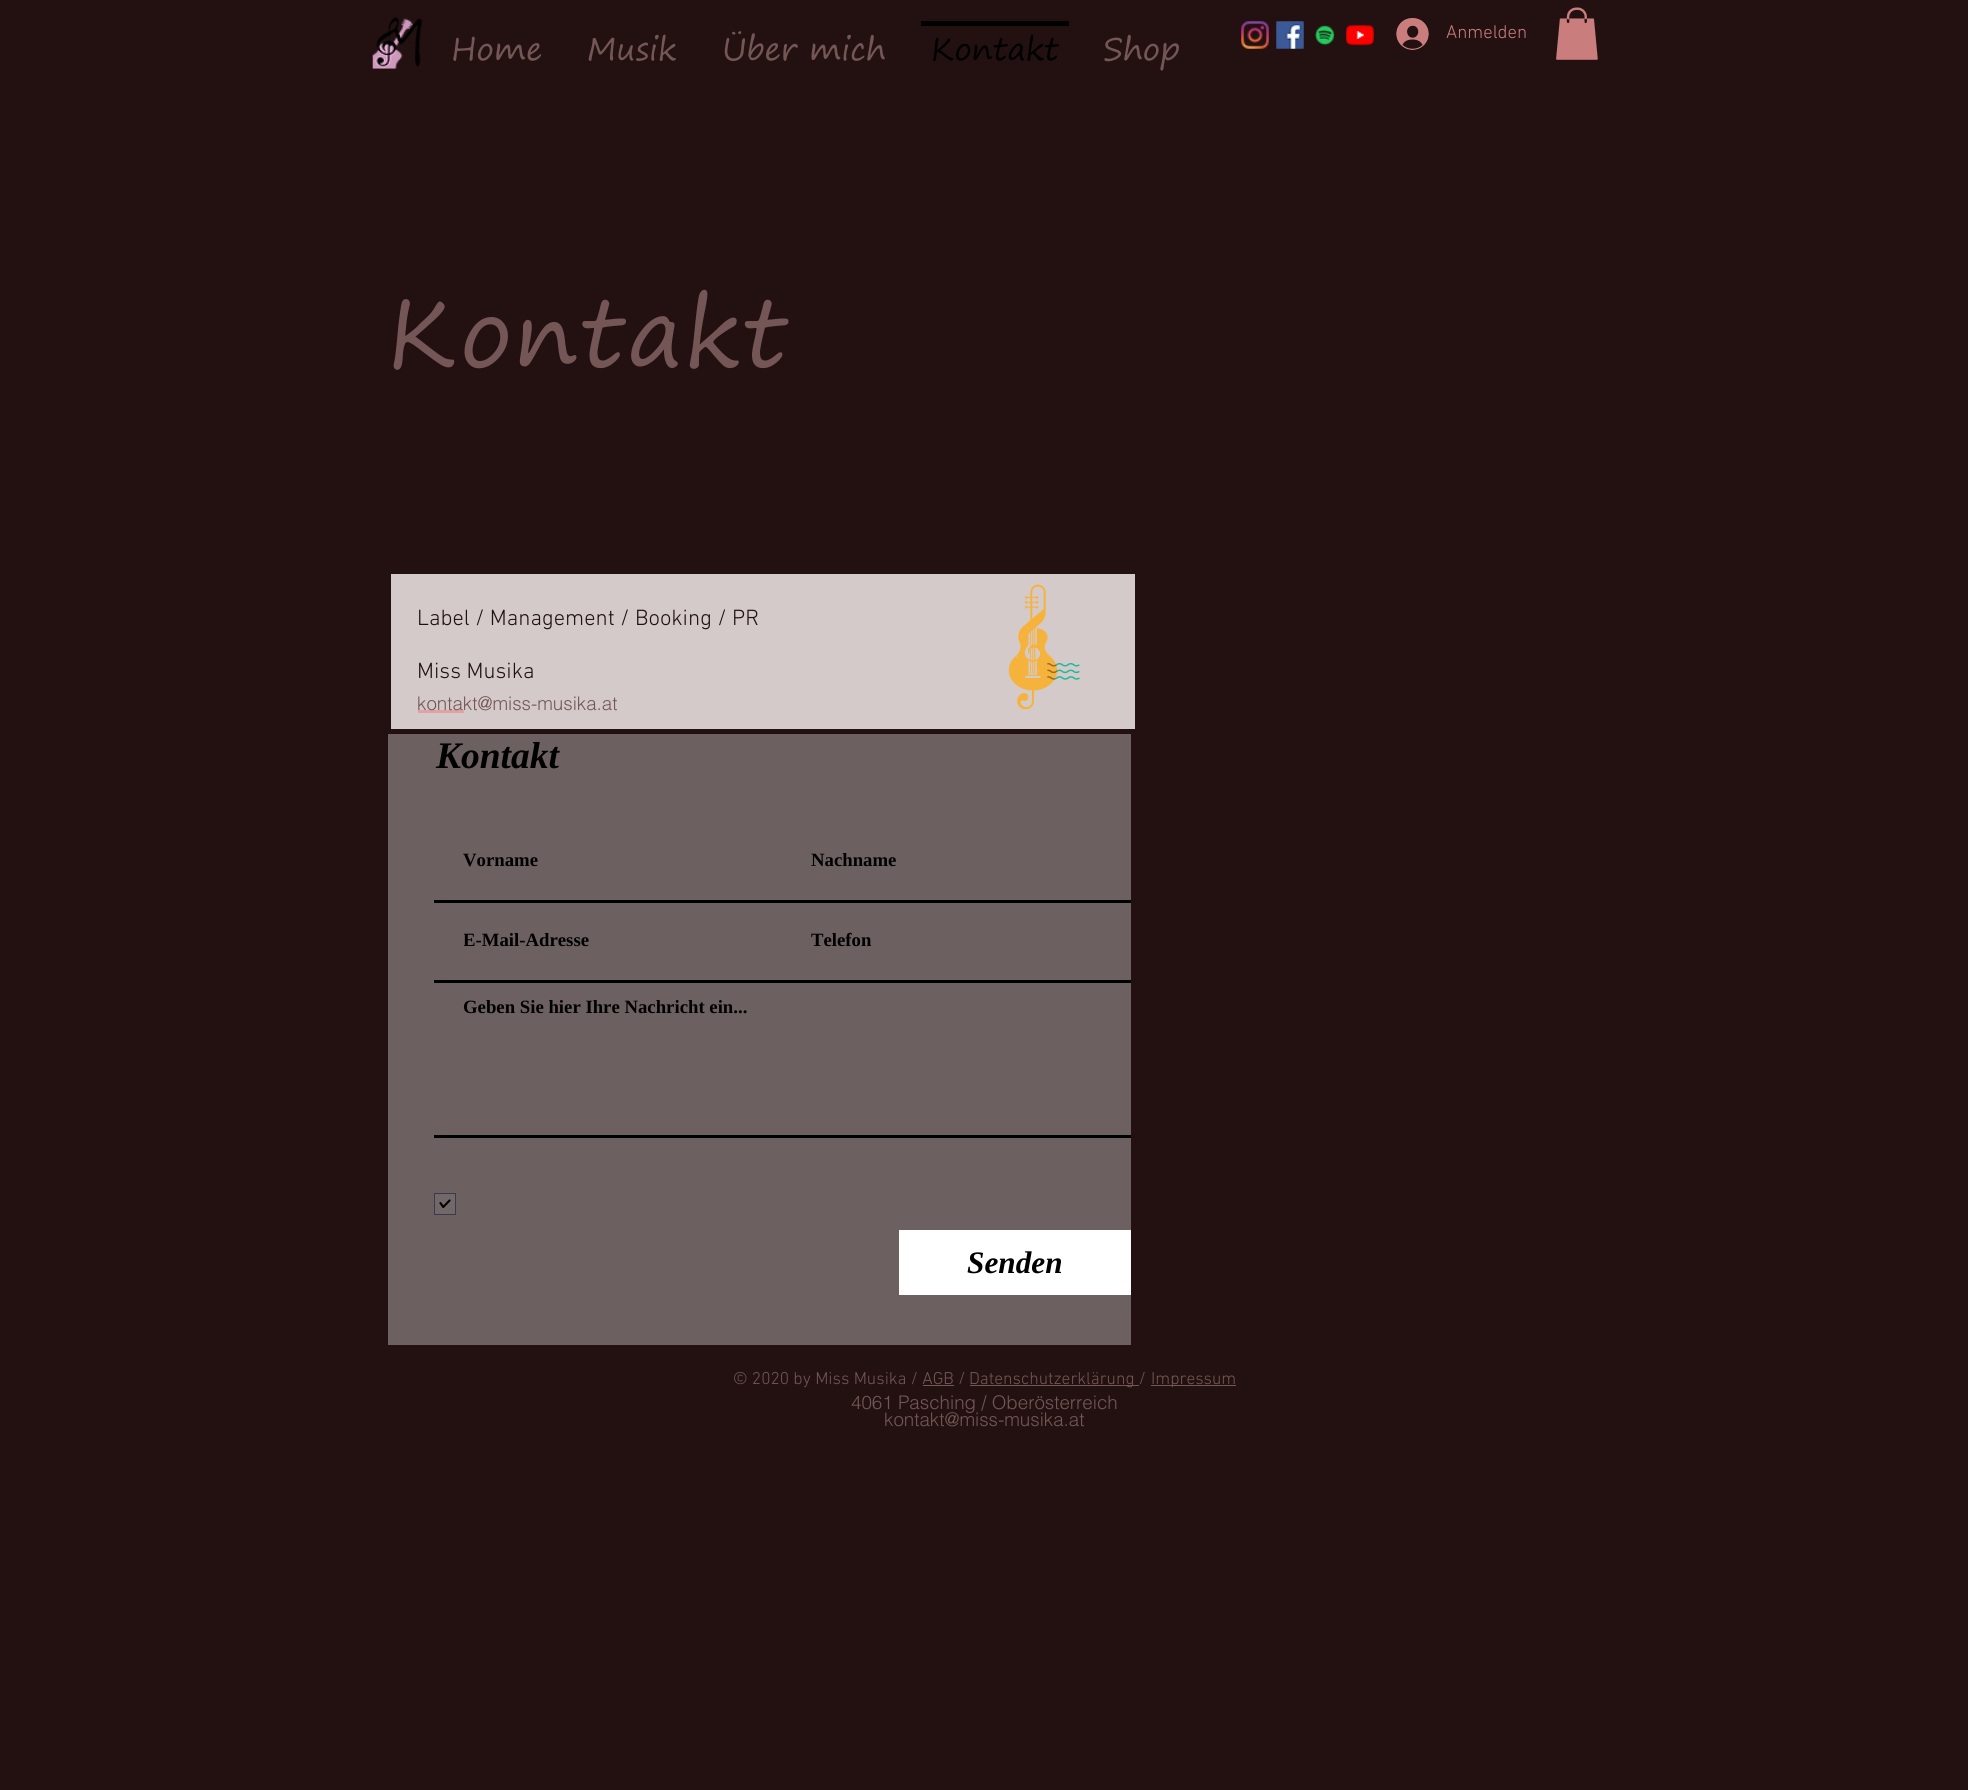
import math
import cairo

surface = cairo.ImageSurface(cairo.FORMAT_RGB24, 1968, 1790)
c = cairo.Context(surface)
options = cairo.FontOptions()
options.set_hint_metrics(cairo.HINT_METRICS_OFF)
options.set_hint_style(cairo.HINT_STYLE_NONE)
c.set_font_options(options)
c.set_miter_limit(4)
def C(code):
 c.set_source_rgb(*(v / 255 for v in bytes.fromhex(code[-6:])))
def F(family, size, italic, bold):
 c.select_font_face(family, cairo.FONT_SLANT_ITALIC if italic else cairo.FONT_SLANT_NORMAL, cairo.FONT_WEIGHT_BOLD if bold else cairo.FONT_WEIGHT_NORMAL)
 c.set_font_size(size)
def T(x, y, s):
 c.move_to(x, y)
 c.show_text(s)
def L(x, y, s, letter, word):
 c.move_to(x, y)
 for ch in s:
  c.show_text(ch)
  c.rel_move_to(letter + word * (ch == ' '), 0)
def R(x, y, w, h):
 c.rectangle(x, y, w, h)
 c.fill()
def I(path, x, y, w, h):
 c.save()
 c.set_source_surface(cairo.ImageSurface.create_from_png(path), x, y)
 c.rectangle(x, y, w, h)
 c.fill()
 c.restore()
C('231111')
c.paint()
I('1.png',372,17,51,52)
F('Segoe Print',31.25,0,0)
C('745656')
T(451,60,'Home')
T(587,60,'Musik')
T(722,60,'Über mich')
C('000000')
R(921,21,148,5)
T(931,60,'Kontakt')
C('745656')
T(1103,60,'Shop')
I('2.png',1241,21,28,28)
I('3.png',1276,21,28,28)
I('4.png',1315,25,20,21)
I('5.png',1346,24,28,22)
I('6.png',1396,18,33,32)
F('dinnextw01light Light',18.75,0,0)
C('c97d7d')
T(1446,38,'Anmelden')
I('7.png',1556,7,42,53)
F('Segoe Print',93.75,0,0)
C('745656')
L(387,366,'Kontakt',2.75,0)
C('d4caca')
R(391,574,744,155)
F('dinnextw01light Light',22.5,0,0)
C('231111')
T(417,625,'Label / Management / Booking / PR')
T(417,678,'Miss Musika')
C('e0a2a2')
R(418,710,46,3)
F('helvetica Light',18.75,0,0)
C('745656')
T(417,710,'kontakt@miss-musika.at')
I('8.png',1008,584,72,126)
C('6c6060')
R(388,734,743,611)
F('Liberation Serif',37.5,1,1)
C('000000')
T(436,768,'Kontakt')
R(434,900,697,3)
F('Liberation Serif',18.75,0,1)
T(463,866,'Vorname')
T(811,866,'Nachname')
R(434,980,697,3)
c.save()
c.rectangle(464,930,316,21)
c.clip()
T(463,946,'E-Mail-Adresse')
c.restore()
c.save()
c.rectangle(811,930,317,21)
c.clip()
T(811,946,'Telefon')
c.restore()
R(434,1135,697,3)
T(463,1013,'Geben Sie hier Ihre Nachricht ein...')
C('736868')
c.rectangle(434.5,1193.5,21,21)
c.fill_preserve()
C('373b4d')
c.set_line_width(1)
c.stroke()
I('9.png',439,1199,12,9)
C('ffffff')
R(899,1230,232,65)
F('Liberation Serif',31.25,1,1)
C('000000')
T(967,1273,'Senden')
F('dinnextw01light Light',17.5,0,0)
C('745656')
T(733,1384,'© 2020 by Miss Musika / AGB /')
R(923,1385,31,1)
R(970,1385,169,1)
T(969,1384,'Datenschutzerklärung /')
R(1151,1385,85,1)
T(1151,1384,'Impressum')
F('helvetica Light',18.75,0,0)
T(851,1409,'4061 Pasching / Oberösterreich')
T(884,1426,'kontakt@miss-musika.at')
surface.write_to_png('o.png')
